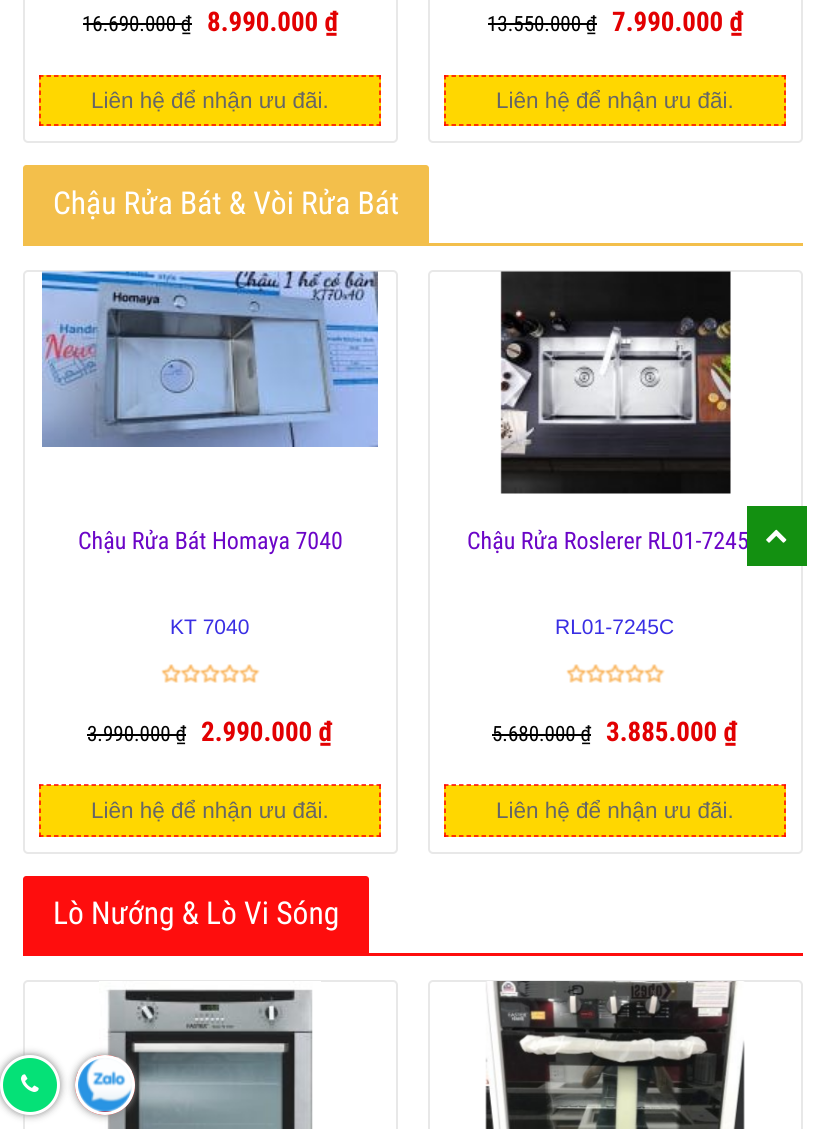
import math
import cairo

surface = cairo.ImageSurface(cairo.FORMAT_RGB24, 825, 1129)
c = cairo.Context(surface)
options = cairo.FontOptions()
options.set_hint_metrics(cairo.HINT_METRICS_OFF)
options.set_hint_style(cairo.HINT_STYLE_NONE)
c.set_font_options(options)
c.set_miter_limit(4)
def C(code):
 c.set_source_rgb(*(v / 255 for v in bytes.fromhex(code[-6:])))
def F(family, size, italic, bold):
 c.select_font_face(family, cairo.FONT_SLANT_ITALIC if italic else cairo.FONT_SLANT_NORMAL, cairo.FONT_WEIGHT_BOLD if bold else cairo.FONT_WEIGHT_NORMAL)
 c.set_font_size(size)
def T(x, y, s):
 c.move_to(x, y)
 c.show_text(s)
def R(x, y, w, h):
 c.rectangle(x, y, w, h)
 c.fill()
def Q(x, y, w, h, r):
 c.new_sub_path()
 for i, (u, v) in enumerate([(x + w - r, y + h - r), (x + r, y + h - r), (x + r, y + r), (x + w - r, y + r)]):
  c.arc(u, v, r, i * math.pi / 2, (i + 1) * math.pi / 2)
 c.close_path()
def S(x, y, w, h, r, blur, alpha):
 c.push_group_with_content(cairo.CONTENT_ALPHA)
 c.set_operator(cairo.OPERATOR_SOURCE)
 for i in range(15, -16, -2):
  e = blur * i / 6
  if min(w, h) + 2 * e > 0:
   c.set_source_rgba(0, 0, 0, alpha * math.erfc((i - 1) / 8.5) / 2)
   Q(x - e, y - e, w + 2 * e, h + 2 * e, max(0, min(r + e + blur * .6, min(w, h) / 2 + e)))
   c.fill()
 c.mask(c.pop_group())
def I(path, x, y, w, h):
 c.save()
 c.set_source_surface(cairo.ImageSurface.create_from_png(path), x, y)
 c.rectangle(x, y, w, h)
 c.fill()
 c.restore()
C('ffffff')
c.paint()
Q(24,-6,373,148,4)
C('e8e8e8')
c.stroke()
F('Roboto Condensed',21,0,0)
C('000000')
T(82,31,'16.690.000 ₫')
R(83,23,109,2)
F('Roboto Condensed',27,0,1)
C('e20001')
T(207,31,'8.990.000 ₫')
C('ffd700')
R(39,75,342,51)
c.new_path()
c.move_to(39,76)
c.line_to(381,76)
C('ff0000')
c.set_line_width(1.5)
c.set_dash([4.5,3])
c.stroke()
c.new_path()
c.move_to(380,75)
c.line_to(380,126)
c.set_dash([4.5,3.25])
c.stroke()
c.new_path()
c.move_to(39,125)
c.line_to(381,125)
c.set_dash([4.5,3])
c.stroke()
c.new_path()
c.move_to(40,75)
c.line_to(40,126)
c.set_dash([4.5,3.25])
c.stroke()
F('Liberation Sans',22.5,0,0)
C('666666')
T(91,108,'Liên hệ để nhận ưu đãi.')
Q(429,-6,373,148,4)
C('e8e8e8')
c.set_line_width(2)
c.set_dash([])
c.stroke()
F('Roboto Condensed',21,0,0)
C('000000')
T(487,31,'13.550.000 ₫')
R(488,23,109,2)
F('Roboto Condensed',27,0,1)
C('e20001')
T(612,31,'7.990.000 ₫')
C('ffd700')
R(444,75,342,51)
c.new_path()
c.move_to(444,76)
c.line_to(786,76)
C('ff0000')
c.set_line_width(1.5)
c.set_dash([4.5,3])
c.stroke()
c.new_path()
c.move_to(785,75)
c.line_to(785,126)
c.set_dash([4.5,3.25])
c.stroke()
c.new_path()
c.move_to(444,125)
c.line_to(786,125)
c.set_dash([4.5,3])
c.stroke()
c.new_path()
c.move_to(445,75)
c.line_to(445,126)
c.set_dash([4.5,3.25])
c.stroke()
F('Liberation Sans',22.5,0,0)
C('666666')
T(496,108,'Liên hệ để nhận ưu đãi.')
C('f3bf4b')
R(23,243,780,3)
c.new_path()
c.move_to(26,165)
c.line_to(426,165)
c.curve_to(427.5,165,429,166.5,429,168)
c.line_to(429,243)
c.line_to(23,243)
c.line_to(23,168)
c.curve_to(23,166.5,24.5,165,26,165)
c.close_path()
c.fill()
F('Roboto Condensed',31.5,0,0)
C('ffffff')
T(53,214,'Chậu Rửa Bát & Vòi Rửa Bát')
Q(24,271,373,582,4)
C('e8e8e8')
c.set_line_width(2)
c.set_dash([])
c.stroke()
I('1.png',42,271,336,176)
F('Roboto Condensed',24,0,0)
C('6b05c7')
T(78,549,'Chậu Rửa Bát Homaya 7040')
F('Liberation Sans',21,0,0)
C('392ee4')
T(170,634,'KT 7040')
I('2.png',161,664,99,19)
F('Roboto Condensed',21,0,0)
C('000000')
T(87,741,'3.990.000 ₫')
R(87,734,99,2)
F('Roboto Condensed',27,0,1)
C('e20001')
T(201,741,'2.990.000 ₫')
C('ffd700')
R(39,785,342,52)
c.new_path()
c.move_to(39,785)
c.line_to(381,785)
C('ff0000')
c.set_line_width(1.5)
c.set_dash([4.5,3])
c.stroke()
c.new_path()
c.move_to(380,784.5)
c.line_to(380,837)
c.set_dash([4.5,3.5])
c.stroke()
c.new_path()
c.move_to(39,836)
c.line_to(381,836)
c.set_dash([4.5,3])
c.stroke()
c.new_path()
c.move_to(40,784.5)
c.line_to(40,837)
c.set_dash([4.5,3.5])
c.stroke()
F('Liberation Sans',22.5,0,0)
C('666666')
T(91,818,'Liên hệ để nhận ưu đãi.')
Q(429,271,373,582,4)
C('e8e8e8')
c.set_line_width(2)
c.set_dash([])
c.stroke()
I('3.png',500,271,231,223)
F('Roboto Condensed',24,0,0)
C('6b05c7')
T(467,549,'Chậu Rửa Roslerer RL01-7245')
F('Liberation Sans',21,0,0)
C('392ee4')
T(555,634,'RL01-7245C')
I('2.png',566,664,99,19)
F('Roboto Condensed',21,0,0)
C('000000')
T(492,741,'5.680.000 ₫')
R(492,734,99,2)
F('Roboto Condensed',27,0,1)
C('e20001')
T(606,741,'3.885.000 ₫')
C('ffd700')
R(444,785,342,52)
c.new_path()
c.move_to(444,785)
c.line_to(786,785)
C('ff0000')
c.set_line_width(1.5)
c.set_dash([4.5,3])
c.stroke()
c.new_path()
c.move_to(785,784.5)
c.line_to(785,837)
c.set_dash([4.5,3.5])
c.stroke()
c.new_path()
c.move_to(444,836)
c.line_to(786,836)
c.set_dash([4.5,3])
c.stroke()
c.new_path()
c.move_to(445,784.5)
c.line_to(445,837)
c.set_dash([4.5,3.5])
c.stroke()
F('Liberation Sans',22.5,0,0)
C('666666')
T(496,818,'Liên hệ để nhận ưu đãi.')
C('fe0d0d')
R(23,953,780,3)
c.new_path()
c.move_to(26,876)
c.line_to(366,876)
c.curve_to(367.5,876,369,877.5,369,879)
c.line_to(369,953)
c.line_to(23,953)
c.line_to(23,879)
c.curve_to(23,877.5,24.5,876,26,876)
c.close_path()
c.fill()
F('Roboto Condensed',31.5,0,0)
C('ffffff')
T(53,924,'Lò Nướng & Lò Vi Sóng')
Q(24,981,373,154,4)
C('e8e8e8')
c.set_line_width(2)
c.set_dash([])
c.stroke()
I('4.png',99,981,222,148)
Q(429,981,373,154,4)
c.stroke()
I('5.png',485,981,260,148)
C('139011')
R(747,506,60,60)
I('6.png',766,529,21,14)
C('888888')
S(0,1055,60,60,30,4,1)
C('05e177')
c.arc(30,1085,28.5,0,2 * math.pi)
c.fill_preserve()
C('ffffff')
c.set_line_width(3)
c.stroke()
I('7.png',21,1074,18,18)
C('888888')
S(75,1055,60,60,30,4,1)
C('ef0303')
c.arc(105,1085,30,0,2 * math.pi)
c.fill()
I('8.png',78,1057,54,55)
c.arc(105,1085,28.5,0,2 * math.pi)
C('ffffff')
c.stroke()
surface.write_to_png('o.png')
